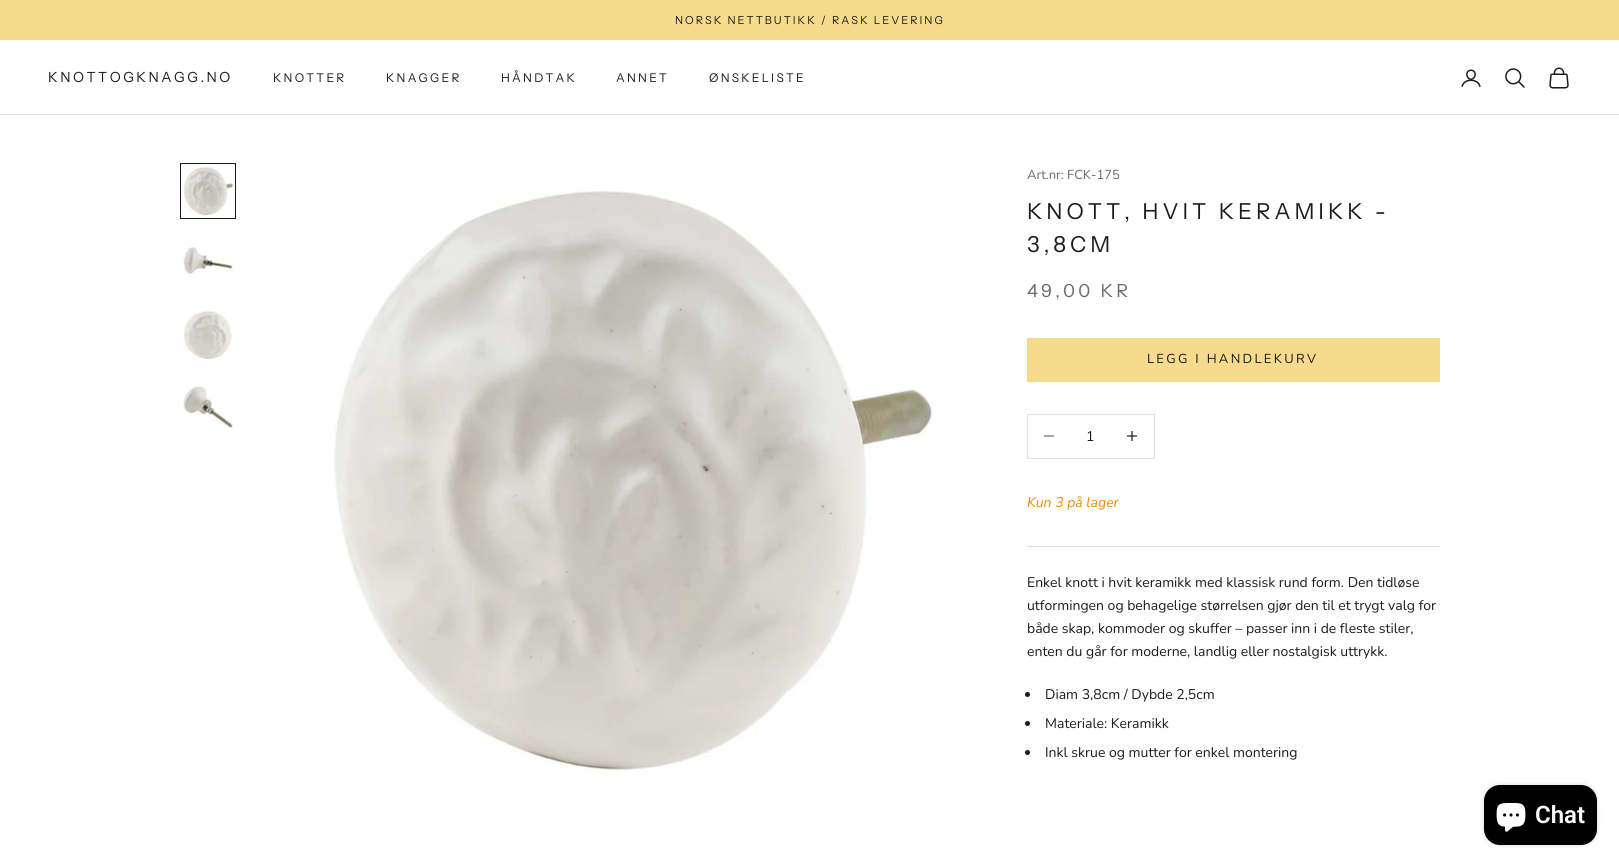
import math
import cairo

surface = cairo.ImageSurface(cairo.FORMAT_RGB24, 1619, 866)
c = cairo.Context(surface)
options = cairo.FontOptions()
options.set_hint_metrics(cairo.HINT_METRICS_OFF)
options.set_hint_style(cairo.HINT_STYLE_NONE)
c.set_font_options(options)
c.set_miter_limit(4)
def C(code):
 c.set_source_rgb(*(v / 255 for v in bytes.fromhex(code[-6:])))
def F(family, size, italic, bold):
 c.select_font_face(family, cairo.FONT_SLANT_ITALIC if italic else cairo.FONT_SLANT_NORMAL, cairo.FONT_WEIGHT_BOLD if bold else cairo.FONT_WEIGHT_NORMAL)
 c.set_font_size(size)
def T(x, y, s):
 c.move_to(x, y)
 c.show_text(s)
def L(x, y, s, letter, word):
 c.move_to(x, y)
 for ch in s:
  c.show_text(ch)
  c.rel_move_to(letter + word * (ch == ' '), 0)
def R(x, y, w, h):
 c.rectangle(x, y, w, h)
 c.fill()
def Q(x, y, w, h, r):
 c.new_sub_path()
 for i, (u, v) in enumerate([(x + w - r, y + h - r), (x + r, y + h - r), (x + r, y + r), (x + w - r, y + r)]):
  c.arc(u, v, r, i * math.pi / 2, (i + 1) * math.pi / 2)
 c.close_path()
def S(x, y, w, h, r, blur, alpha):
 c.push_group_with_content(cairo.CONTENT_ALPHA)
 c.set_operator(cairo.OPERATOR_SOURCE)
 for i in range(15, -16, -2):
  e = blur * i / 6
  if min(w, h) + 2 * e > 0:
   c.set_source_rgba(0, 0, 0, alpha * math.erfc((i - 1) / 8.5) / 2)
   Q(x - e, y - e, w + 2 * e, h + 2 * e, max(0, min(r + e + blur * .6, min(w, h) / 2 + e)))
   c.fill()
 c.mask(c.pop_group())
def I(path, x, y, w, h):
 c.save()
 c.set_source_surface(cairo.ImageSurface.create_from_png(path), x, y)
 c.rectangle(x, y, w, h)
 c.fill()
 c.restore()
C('ffffff')
c.paint()
C('f5db8b')
R(0,0,1619,40)
F('Instrument Sans',11,0,0)
C('1c1c1c')
L(675,24,'NORSK NETTBUTIKK / RASK LEVERING',2,0)
C('dddddd')
R(0,114,1619,1)
F('Instrument Sans',14,0,0)
C('1c1c1c')
L(48,82,'KNOTTOGKNAGG.NO',2.5,0)
F('Instrument Sans',12,0,0)
L(273,82,'KNOTTER',2.25,0)
L(386,82,'KNAGGER',2.25,0)
L(501,82,'HÅNDTAK',2.25,0)
L(616,82,'ANNET',2.25,0)
L(709,82,'ØNSKELISTE',2.25,0)
I('1.png',1461,69,20,18)
I('2.png',1505,68,20,20)
I('3.png',1549,67,20,22)
c.rectangle(180.5,163.5,55,55)
c.set_line_width(1)
c.stroke()
I('4.png',183,166,51,50)
I('5.png',183,247,51,27)
I('6.png',184,311,48,49)
I('7.png',183,386,51,43)
I('8.png',333,191,599,581)
F('Nunito',13,0,0)
C('6b6b6b')
T(1027,179,'Art.nr: FCK-175')
F('Instrument Sans',22,0,0)
C('1c1c1c')
L(1027,219,'KNOTT, HVIT KERAMIKK -',4,0)
L(1027,252,'3,8CM',4,0)
F('Instrument Sans',18,0,0)
C('6b6b6b')
L(1027,297,'49,00 KR',3.25,0)
C('f5db8b')
c.rectangle(1027.5,338.5,412,43)
c.fill_preserve()
c.stroke()
F('Nunito',13,0,0)
C('1c1c1c')
L(1147,363,'LEGG I HANDLEKURV',2.3,0)
c.rectangle(1027.5,414.5,127,44)
C('dddddd')
c.stroke()
c.new_path()
c.move_to(1044,436)
c.line_to(1054,436)
C('6b6b6b')
c.set_line_width(1.2)
c.stroke()
F('Nunito',14,0,0)
C('1c1c1c')
T(1086,441,'1')
c.new_path()
c.move_to(1132,431)
c.line_to(1132,441)
c.move_to(1127,436)
c.line_to(1137,436)
c.stroke()
F('Nunito',14,1,0)
C('ed8a00')
T(1027,507,'Kun 3 på lager')
C('dddddd')
R(1027,546,413,1)
F('Nunito',14,0,0)
C('1c1c1c')
T(1027,587,'Enkel knott i hvit keramikk med klassisk rund form. Den tidløse')
T(1027,610,'utformingen og behagelige størrelsen gjør den til et trygt valg for')
T(1027,633,'både skap, kommoder og skuffer – passer inn i de fleste stiler,')
T(1027,656,'enten du går for moderne, landlig eller nostalgisk uttrykk.')
c.new_path()
c.arc(1027.5,694.5,2.5,0,2 * math.pi)
c.fill()
T(1045,699,'Diam 3,8cm / Dybde 2,5cm')
c.new_path()
c.arc(1027.5,723.5,2.5,0,2 * math.pi)
c.fill()
T(1045,728,'Materiale: Keramikk')
c.new_path()
c.arc(1027.5,752.5,2.5,0,2 * math.pi)
c.fill()
T(1045,757,'Inkl skrue og mutter for enkel montering')
C('000000')
S(1484,785,113,60,16,2.5,.15)
C('000000')
Q(1484,785,113,60,16)
c.fill()
I('9.png',1496,803,30,29)
F('Roboto SemiBold',24,0,0)
C('ffffff')
T(1535,823,'Chat')
surface.write_to_png('o.png')
